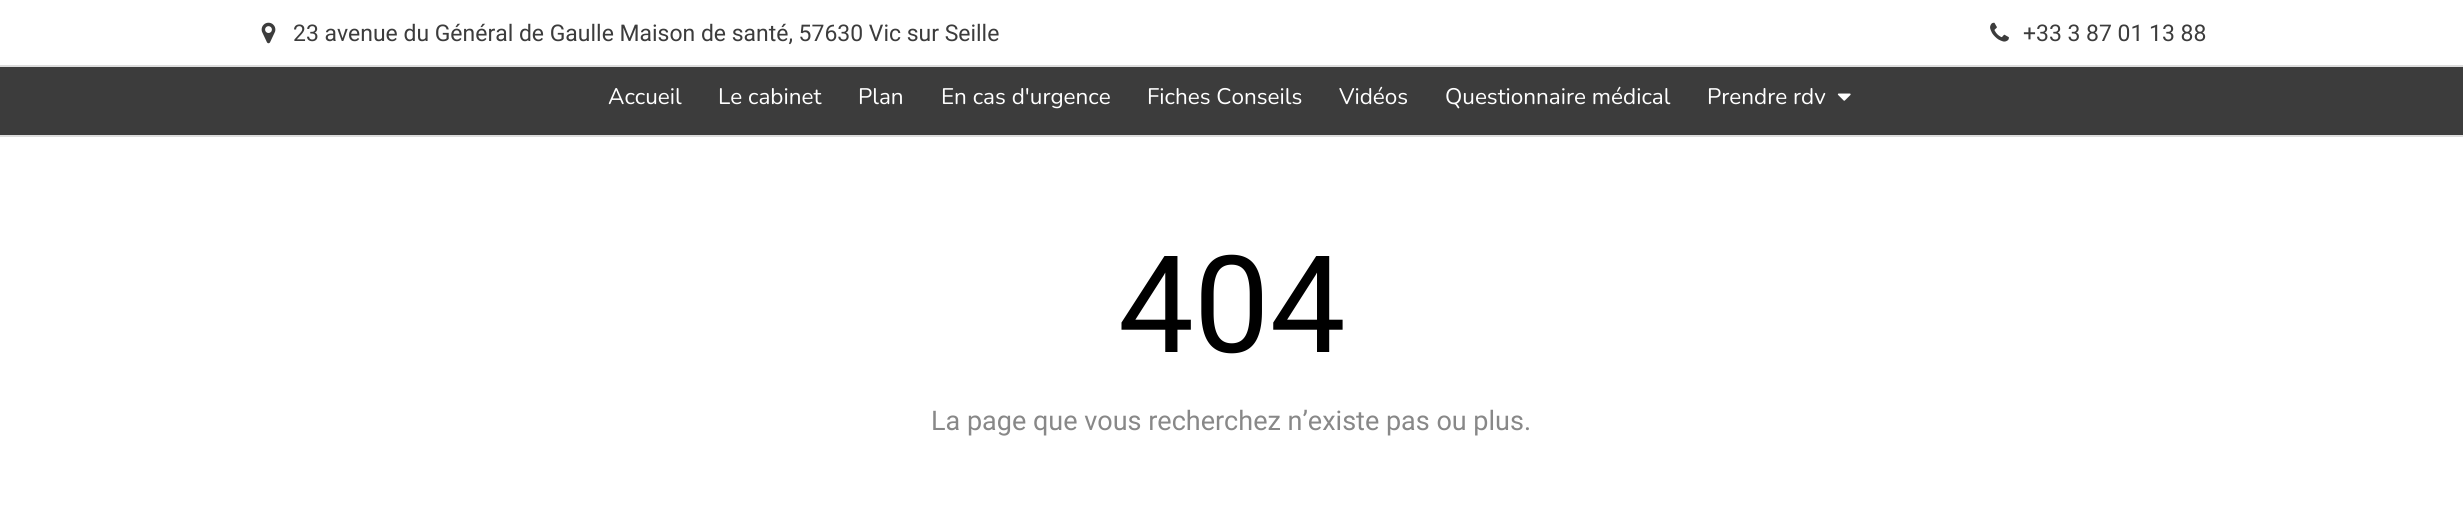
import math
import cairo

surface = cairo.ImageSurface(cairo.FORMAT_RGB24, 2463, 519)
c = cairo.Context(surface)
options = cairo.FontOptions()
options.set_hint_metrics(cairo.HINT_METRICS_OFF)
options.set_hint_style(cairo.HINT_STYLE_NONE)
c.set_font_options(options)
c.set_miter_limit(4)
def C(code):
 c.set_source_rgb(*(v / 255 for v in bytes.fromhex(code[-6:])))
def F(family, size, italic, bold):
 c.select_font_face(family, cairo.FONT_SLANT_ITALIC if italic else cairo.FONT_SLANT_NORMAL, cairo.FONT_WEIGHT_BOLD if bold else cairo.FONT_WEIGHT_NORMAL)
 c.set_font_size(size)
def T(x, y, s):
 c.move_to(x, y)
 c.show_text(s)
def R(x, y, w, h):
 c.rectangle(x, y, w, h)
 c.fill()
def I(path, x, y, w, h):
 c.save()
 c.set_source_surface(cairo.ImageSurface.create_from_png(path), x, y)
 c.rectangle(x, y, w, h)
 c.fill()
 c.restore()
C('ffffff')
c.paint()
C('dcdcdc')
R(0,65,2463,2)
I('1.png',261,22,15,22)
F('Roboto',22.95,0,0)
C('3c3c3c')
T(293,41,'23 avenue du Général de Gaulle Maison de santé, 57630 Vic sur Seille')
I('2.png',1990,22,19,20)
T(2023,41,'+33 3 87 01 13 88')
R(0,67,2463,68)
C('dddddd')
R(0,135,2463,2)
F('Nunito',22.5,0,0)
C('ffffff')
T(608,104,'Accueil')
T(718,104,'Le cabinet')
T(858,104,'Plan')
T(941,104,'En cas d\'urgence')
T(1147,104,'Fiches Conseils')
T(1339,104,'Vidéos')
T(1445,104,'Questionnaire médical')
T(1707,104,'Prendre rdv')
I('3.png',1837,93,14,8)
F('Roboto',135,0,0)
C('000000')
T(1118,352,'404')
F('Roboto',27,0,0)
C('888888')
T(931,430,'La page que vous recherchez n’existe pas ou plus.')
surface.write_to_png('o.png')
